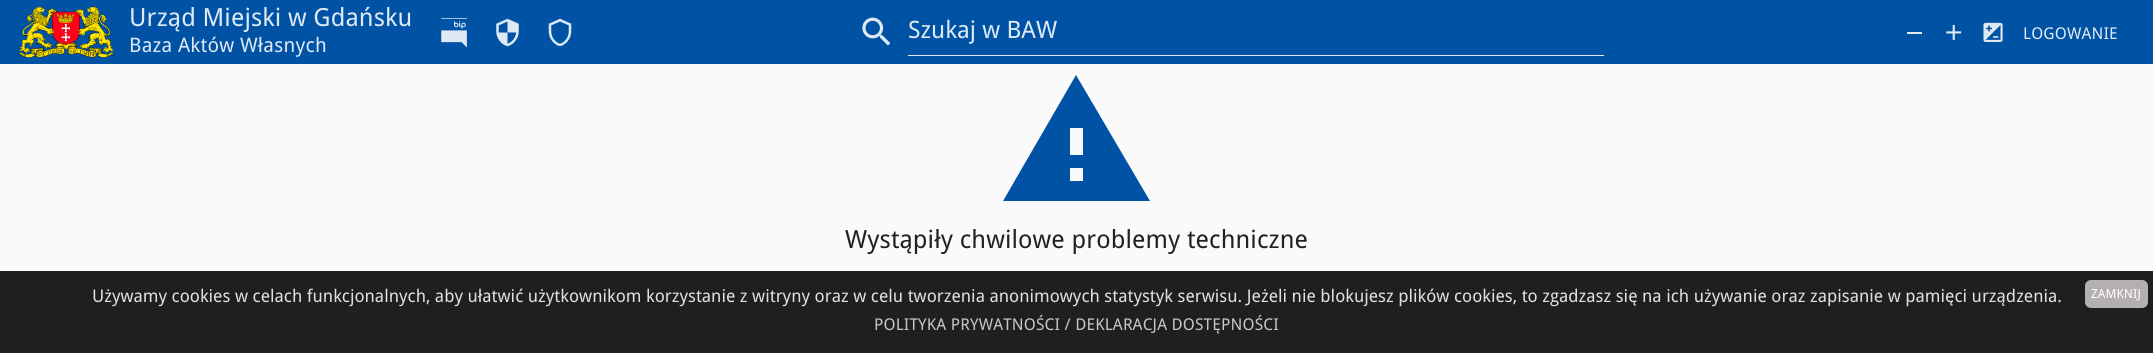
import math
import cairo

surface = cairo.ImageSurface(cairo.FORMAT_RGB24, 2153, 353)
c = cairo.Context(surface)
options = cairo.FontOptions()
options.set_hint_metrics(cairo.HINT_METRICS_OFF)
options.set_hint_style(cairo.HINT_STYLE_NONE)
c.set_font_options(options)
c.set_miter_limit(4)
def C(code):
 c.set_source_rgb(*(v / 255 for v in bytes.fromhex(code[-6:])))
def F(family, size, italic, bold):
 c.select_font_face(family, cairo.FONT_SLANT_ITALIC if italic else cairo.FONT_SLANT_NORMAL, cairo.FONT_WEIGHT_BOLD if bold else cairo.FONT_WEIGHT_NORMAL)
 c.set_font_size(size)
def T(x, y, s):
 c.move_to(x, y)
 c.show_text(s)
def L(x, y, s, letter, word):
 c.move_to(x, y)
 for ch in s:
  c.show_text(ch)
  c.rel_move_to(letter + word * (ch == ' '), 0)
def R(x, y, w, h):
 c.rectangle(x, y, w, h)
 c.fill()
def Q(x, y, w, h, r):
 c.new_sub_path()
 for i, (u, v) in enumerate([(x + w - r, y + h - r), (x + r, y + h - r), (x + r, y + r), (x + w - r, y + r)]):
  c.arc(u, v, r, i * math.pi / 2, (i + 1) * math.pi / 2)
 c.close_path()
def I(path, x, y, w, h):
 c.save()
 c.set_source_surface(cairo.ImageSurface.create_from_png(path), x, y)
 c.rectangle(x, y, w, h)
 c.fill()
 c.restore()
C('fafafa')
c.paint()
C('0052a5')
R(0,0,2153,64)
I('1.png',17,6,98,52)
F('Droid Sans',25,0,0)
C('dee9f3')
L(129,26,'Urząd Miejski w Gdańsku',.1,0)
F('Droid Sans',20,0,0)
L(129,52,'Baza Aktów Własnych',.25,0)
C('0050a1')
R(429,13,1,40)
I('2.png',441,18,26,30)
I('3.png',496,18,23,29)
I('4.png',548,18,24,29)
I('5.png',862,17,29,29)
F('Droid Sans',24,0,0)
C('dee9f3')
T(908,38,'Szukaj w BAW')
R(908,55,696,1)
R(1907,32,15,2)
I('6.png',1946,25,16,15)
I('7.png',1983,22,20,20)
F('Droid Sans',16.25,0,0)
L(2023,39,'LOGOWANIE',.15,0)
C('0052a5')
c.new_path()
c.move_to(1083,155)
c.line_to(1070,155)
c.line_to(1070,128)
c.line_to(1083,128)
c.move_to(1083,181)
c.line_to(1070,181)
c.line_to(1070,168)
c.line_to(1083,168)
c.move_to(1003,201)
c.line_to(1150,201)
c.line_to(1076,75)
c.close_path()
c.fill()
F('Droid Sans',25,0,0)
C('212121')
L(845,248,'Wystąpiły chwilowe problemy techniczne',.1,0)
C('1f1f1f')
R(0,271,2153,82)
F('Droid Sans',17.5,0,0)
C('e0e0e0')
T(92,302,'Używamy cookies w celach funkcjonalnych, aby ułatwić użytkownikom korzystanie z witryny oraz w celu tworzenia anonimowych statystyk serwisu. Jeżeli nie blokujesz plików cookies, to zgadzasz się na ich używanie oraz zapisanie w pamięci urządzenia.')
C('b5b0b0')
Q(2085,280,63,28,6)
c.fill()
F('Droid Sans',12.5,0,0)
C('ffffff')
L(2091,298,'ZAMKNIJ',.1,0)
F('Droid Sans',16.25,0,0)
C('c6c6c6')
L(874,330,'POLITYKA PRYWATNOŚCI / DEKLARACJA DOSTĘPNOŚCI',.15,0)
surface.write_to_png('o.png')
